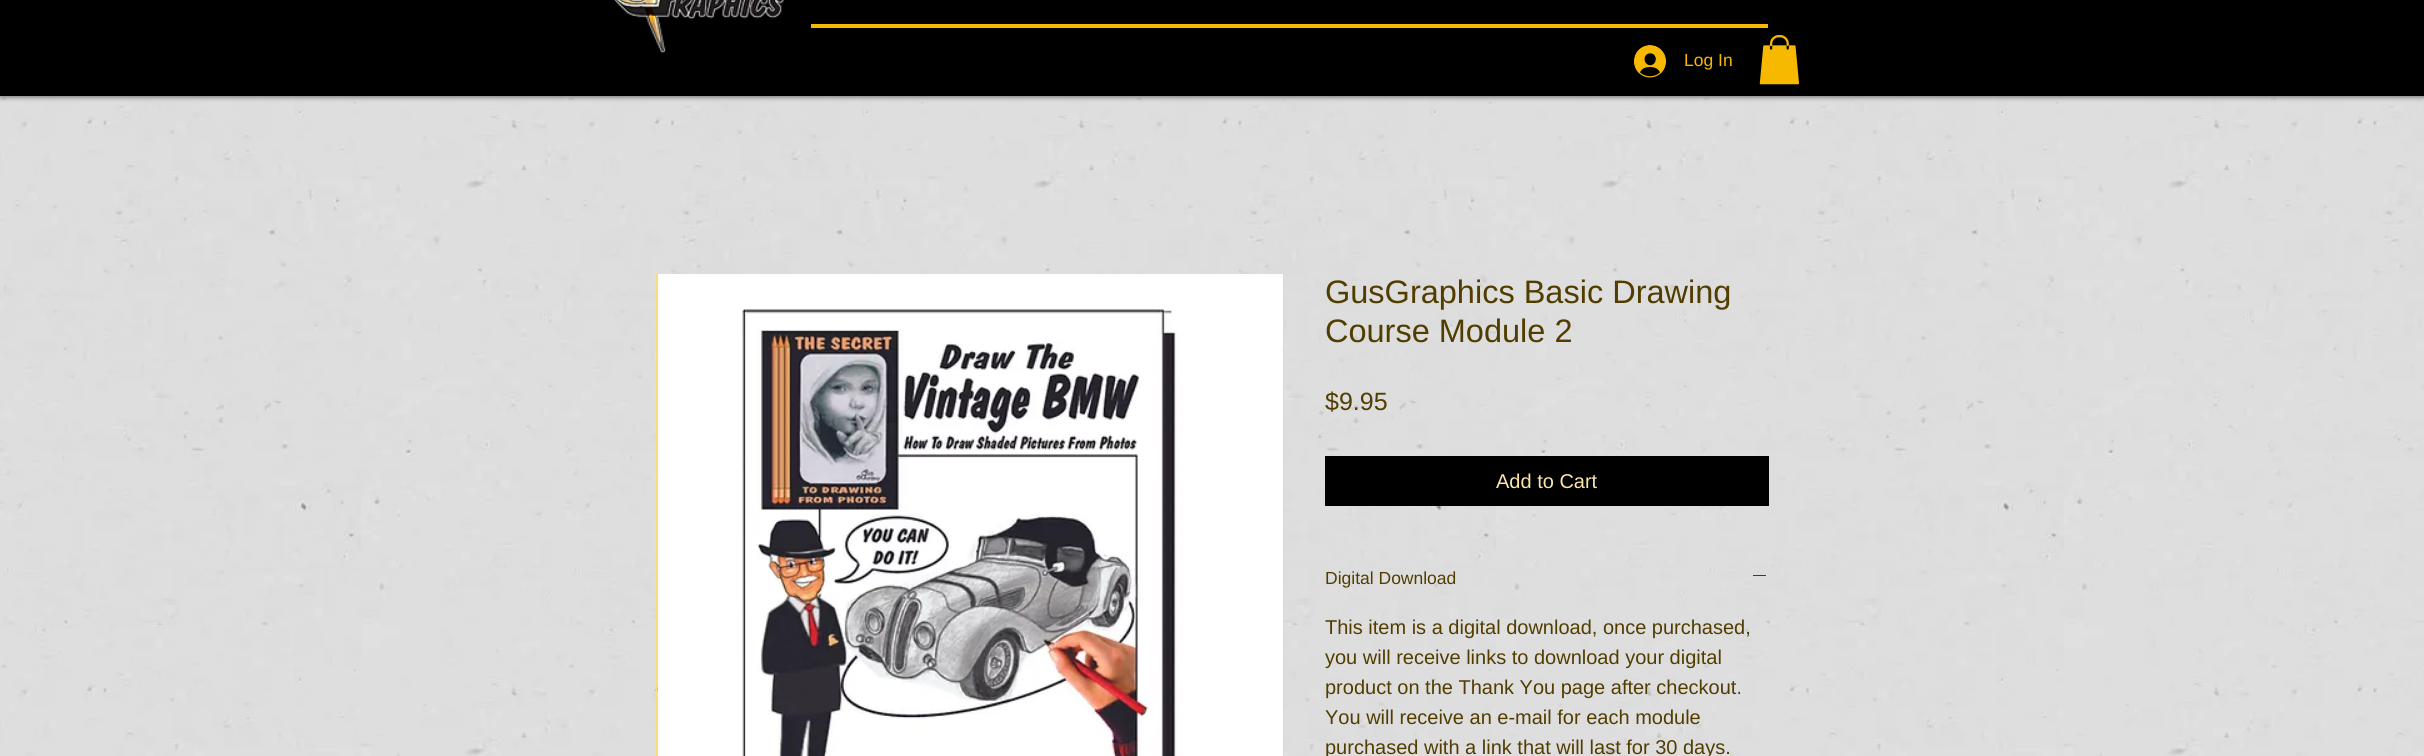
import math
import cairo

surface = cairo.ImageSurface(cairo.FORMAT_RGB24, 2424, 756)
c = cairo.Context(surface)
options = cairo.FontOptions()
options.set_hint_metrics(cairo.HINT_METRICS_OFF)
options.set_hint_style(cairo.HINT_STYLE_NONE)
c.set_font_options(options)
c.set_miter_limit(4)
def C(code):
 c.set_source_rgb(*(v / 255 for v in bytes.fromhex(code[-6:])))
def F(family, size, italic, bold):
 c.select_font_face(family, cairo.FONT_SLANT_ITALIC if italic else cairo.FONT_SLANT_NORMAL, cairo.FONT_WEIGHT_BOLD if bold else cairo.FONT_WEIGHT_NORMAL)
 c.set_font_size(size)
def T(x, y, s):
 c.move_to(x, y)
 c.show_text(s)
def R(x, y, w, h):
 c.rectangle(x, y, w, h)
 c.fill()
def Q(x, y, w, h, r):
 c.new_sub_path()
 for i, (u, v) in enumerate([(x + w - r, y + h - r), (x + r, y + h - r), (x + r, y + r), (x + w - r, y + r)]):
  c.arc(u, v, r, i * math.pi / 2, (i + 1) * math.pi / 2)
 c.close_path()
def S(x, y, w, h, r, blur, alpha):
 c.push_group_with_content(cairo.CONTENT_ALPHA)
 c.set_operator(cairo.OPERATOR_SOURCE)
 for i in range(15, -16, -2):
  e = blur * i / 6
  if min(w, h) + 2 * e > 0:
   c.set_source_rgba(0, 0, 0, alpha * math.erfc((i - 1) / 8.5) / 2)
   Q(x - e, y - e, w + 2 * e, h + 2 * e, max(0, min(r + e + blur * .6, min(w, h) / 2 + e)))
   c.fill()
 c.mask(c.pop_group())
def I(path, x, y, w, h):
 c.save()
 c.set_source_surface(cairo.ImageSurface.create_from_png(path), x, y)
 c.rectangle(x, y, w, h)
 c.fill()
 c.restore()
C('ffffff')
c.paint()
I('5.png',0,96,2424,660)
C('000000')
S(0,-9,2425,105,0,3,.7)
C('000000')
R(0,0,2424,96)
I('1.png',614,0,170,53)
C('f7b800')
R(811,24,957,4)
I('2.png',1634,45,32,33)
F('Liberation Sans',17.5,0,0)
T(1684,66,'Log In')
I('3.png',1759,35,40,50)
c.rectangle(656.5,274.5,627,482)
C('fada7d')
c.set_line_width(1)
c.stroke()
I('4.png',658,274,625,482)
F('Liberation Sans',32.5,0,0)
C('523d00')
T(1325,303,'GusGraphics Basic Drawing')
T(1325,342,'Course Module 2')
F('Liberation Sans',25,0,0)
T(1325,410,'$9.95')
C('000000')
R(1325,456,444,50)
F('Liberation Sans',20,0,0)
C('fce7a8')
T(1496,488,'Add to Cart')
F('Liberation Sans',17.5,0,0)
C('523d00')
T(1325,584,'Digital Download')
R(1753,575,13,1)
F('Liberation Sans',20,0,0)
T(1325,634,'This item is a digital download, once purchased,')
T(1325,664,'you will receive links to download your digital')
T(1325,694,'product on the Thank You page after checkout.')
T(1325,724,'You will receive an e-mail for each module')
T(1325,754,'purchased with a link that will last for 30 days.')
surface.write_to_png('o.png')
